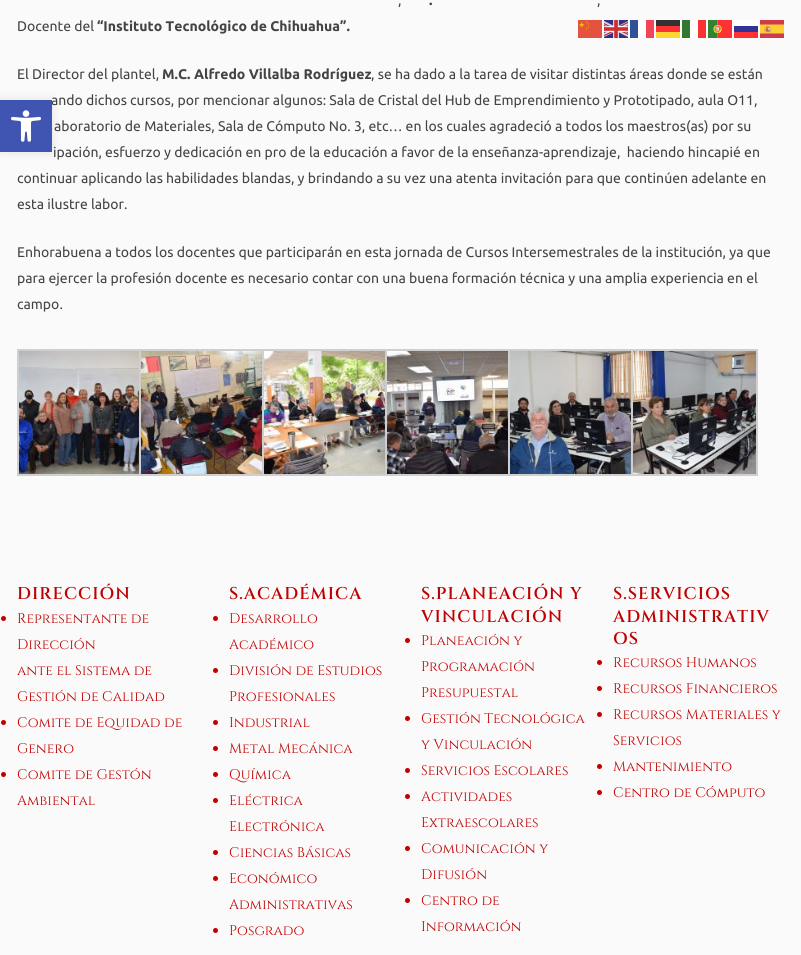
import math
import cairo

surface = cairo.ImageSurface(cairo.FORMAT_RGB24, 801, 955)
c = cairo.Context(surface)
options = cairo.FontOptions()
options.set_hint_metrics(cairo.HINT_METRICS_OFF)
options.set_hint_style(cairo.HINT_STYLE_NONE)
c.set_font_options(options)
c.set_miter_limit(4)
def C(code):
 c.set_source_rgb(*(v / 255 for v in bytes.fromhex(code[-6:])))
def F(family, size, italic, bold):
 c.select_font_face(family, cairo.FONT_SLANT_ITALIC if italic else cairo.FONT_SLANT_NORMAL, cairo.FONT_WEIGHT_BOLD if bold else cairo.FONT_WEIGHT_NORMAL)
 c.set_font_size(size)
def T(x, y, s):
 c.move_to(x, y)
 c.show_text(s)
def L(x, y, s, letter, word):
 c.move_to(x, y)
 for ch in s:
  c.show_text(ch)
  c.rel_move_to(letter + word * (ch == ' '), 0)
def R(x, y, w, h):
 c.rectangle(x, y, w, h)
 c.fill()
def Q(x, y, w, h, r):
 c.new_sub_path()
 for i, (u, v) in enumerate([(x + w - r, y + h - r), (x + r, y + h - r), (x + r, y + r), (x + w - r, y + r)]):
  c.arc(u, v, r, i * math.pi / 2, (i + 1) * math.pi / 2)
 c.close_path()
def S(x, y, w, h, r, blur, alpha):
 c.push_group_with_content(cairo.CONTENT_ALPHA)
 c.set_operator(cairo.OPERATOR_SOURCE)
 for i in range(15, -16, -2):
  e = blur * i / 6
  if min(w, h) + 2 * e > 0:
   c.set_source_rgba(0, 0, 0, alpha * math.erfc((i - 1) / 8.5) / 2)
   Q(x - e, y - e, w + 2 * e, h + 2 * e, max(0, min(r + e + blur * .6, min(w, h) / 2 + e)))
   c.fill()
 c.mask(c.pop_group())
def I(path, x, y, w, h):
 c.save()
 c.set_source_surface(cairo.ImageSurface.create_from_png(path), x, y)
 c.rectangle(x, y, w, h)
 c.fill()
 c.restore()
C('fafafa')
c.paint()
F('Ubuntu',14,0,0)
C('444444')
T(398,5,',')
F('Ubuntu',14,0,1)
T(429,5,'.')
F('Ubuntu',14,0,0)
T(597,5,',')
T(17,31,'Docente del')
F('Ubuntu',14,0,1)
T(97,31,'“Instituto Tecnológico de Chihuahua”.')
F('Ubuntu',14,0,0)
T(17,79,'El Director del plantel,')
F('Ubuntu',14,0,1)
T(162,79,'M.C. Alfredo Villalba Rodríguez')
F('Ubuntu',14,0,0)
T(371,79,', se ha dado a la tarea de visitar distintas áreas donde se están')
T(51,105,'ando dichos cursos, por mencionar algunos: Sala de Cristal del Hub de Emprendimiento y Prototipado, aula O11,')
T(54,131,'aboratorio de Materiales, Sala de Cómputo No. 3, etc… en los cuales agradeció a todos los maestros(as) por su')
T(53,157,'ipación, esfuerzo y dedicación en pro de la educación a favor de la enseñanza-aprendizaje,  haciendo hincapié en')
T(17,183,'continuar aplicando las habilidades blandas, y brindando a su vez una atenta invitación para que continúen adelante en')
T(17,209,'esta ilustre labor.')
T(17,257,'Enhorabuena a todos los docentes que participarán en esta jornada de Cursos Intersemestrales de la institución, ya que')
T(17,283,'para ejercer la profesión docente es necesario contar con una buena formación técnica y una amplia experiencia en el')
T(17,309,'campo.')
c.rectangle(18,350,124,125)
C('cfcfcf')
c.stroke()
I('1.png',19,351,120,123)
c.rectangle(140,350,125,125)
c.stroke()
I('2.png',141,351,121,123)
c.rectangle(263,350,125,125)
c.stroke()
I('3.png',264,351,121,123)
c.rectangle(386,350,125,125)
c.stroke()
I('4.png',387,351,121,123)
c.rectangle(509,350,125,125)
c.stroke()
I('5.png',510,351,121,123)
c.rectangle(632,350,125,125)
c.stroke()
I('6.png',633,351,123,123)
F('Cinzel SemiBold',17,0,0)
C('c00000')
L(17,599,'DIRECCIÓN',1,0)
c.new_path()
c.arc(3.5,618.5,2.5,0,2 * math.pi)
c.fill()
F('Cinzel',14,0,0)
T(17,623,'Representante de')
T(17,649,'Dirección')
T(17,675,'ante el Sistema de')
T(17,701,'Gestión de Calidad')
c.new_path()
c.arc(3.5,722.5,2.5,0,2 * math.pi)
c.fill()
T(17,727,'Comite de Equidad de')
T(17,753,'Genero')
c.new_path()
c.arc(3.5,774.5,2.5,0,2 * math.pi)
c.fill()
T(17,779,'Comite de Gestón')
T(17,805,'Ambiental')
F('Cinzel SemiBold',17,0,0)
L(229,599,'S.ACADÉMICA',1,0)
c.new_path()
c.arc(215.5,618.5,2.5,0,2 * math.pi)
c.fill()
F('Cinzel',14,0,0)
T(229,623,'Desarrollo')
T(229,649,'Académico')
c.new_path()
c.arc(215.5,670.5,2.5,0,2 * math.pi)
c.fill()
T(229,675,'División de Estudios')
T(229,701,'Profesionales')
c.new_path()
c.arc(215.5,722.5,2.5,0,2 * math.pi)
c.fill()
T(229,727,'Industrial')
c.new_path()
c.arc(215.5,748.5,2.5,0,2 * math.pi)
c.fill()
T(229,753,'Metal Mecánica')
c.new_path()
c.arc(215.5,774.5,2.5,0,2 * math.pi)
c.fill()
T(229,779,'Química')
c.new_path()
c.arc(215.5,800.5,2.5,0,2 * math.pi)
c.fill()
T(229,805,'Eléctrica')
T(229,831,'Electrónica')
c.new_path()
c.arc(215.5,852.5,2.5,0,2 * math.pi)
c.fill()
T(229,857,'Ciencias Básicas')
c.new_path()
c.arc(215.5,878.5,2.5,0,2 * math.pi)
c.fill()
T(229,883,'Económico')
T(229,909,'Administrativas')
c.new_path()
c.arc(215.5,930.5,2.5,0,2 * math.pi)
c.fill()
T(229,935,'Posgrado')
F('Cinzel SemiBold',17,0,0)
L(421,599,'S.PLANEACIÓN Y',1,0)
L(421,622,'VINCULACIÓN',1,0)
c.new_path()
c.arc(407.5,640.5,2.5,0,2 * math.pi)
c.fill()
F('Cinzel',14,0,0)
T(421,645,'Planeación y')
T(421,671,'Programación')
T(421,697,'Presupuestal')
c.new_path()
c.arc(407.5,718.5,2.5,0,2 * math.pi)
c.fill()
T(421,723,'Gestión Tecnológica')
T(421,749,'y Vinculación')
c.new_path()
c.arc(407.5,770.5,2.5,0,2 * math.pi)
c.fill()
T(421,775,'Servicios Escolares')
c.new_path()
c.arc(407.5,796.5,2.5,0,2 * math.pi)
c.fill()
T(421,801,'Actividades')
T(421,827,'Extraescolares')
c.new_path()
c.arc(407.5,848.5,2.5,0,2 * math.pi)
c.fill()
T(421,853,'Comunicación y')
T(421,879,'Difusión')
c.new_path()
c.arc(407.5,900.5,2.5,0,2 * math.pi)
c.fill()
T(421,905,'Centro de')
T(421,931,'Información')
F('Cinzel SemiBold',17,0,0)
L(613,599,'S.SERVICIOS',1,0)
L(613,622,'ADMINISTRATIV',1,0)
L(613,644,'OS',1,0)
c.new_path()
c.arc(599.5,662.5,2.5,0,2 * math.pi)
c.fill()
F('Cinzel',14,0,0)
T(613,667,'Recursos Humanos')
c.new_path()
c.arc(599.5,688.5,2.5,0,2 * math.pi)
c.fill()
T(613,693,'Recursos Financieros')
c.new_path()
c.arc(599.5,714.5,2.5,0,2 * math.pi)
c.fill()
T(613,719,'Recursos Materiales y')
T(613,745,'Servicios')
c.new_path()
c.arc(599.5,766.5,2.5,0,2 * math.pi)
c.fill()
T(613,771,'Mantenimiento')
c.new_path()
c.arc(599.5,792.5,2.5,0,2 * math.pi)
c.fill()
T(613,797,'Centro de Cómputo')
I('7.png',578,20,24,18)
I('8.png',604,20,24,18)
C('325098')
R(630,20,8,18)
C('fefefe')
R(638,20,8,18)
C('f44558')
R(646,20,8,18)
C('323232')
R(656,20,24,6)
C('327832')
R(682,20,8,18)
C('fefefe')
R(690,20,8,18)
C('fc3232')
R(698,20,8,18)
I('9.png',708,20,24,18)
C('fefefe')
R(734,20,24,6)
I('10.png',760,20,24,18)
C('fe3232')
R(656,26,24,6)
C('333397')
R(734,26,24,6)
C('fed532')
R(656,32,24,6)
C('fd3333')
R(734,32,24,6)
C('000000')
S(0,100,52,52,0,5,.1)
C('4054b2')
R(0,100,52,52)
I('11.png',11,110,30,32)
surface.write_to_png('o.png')
